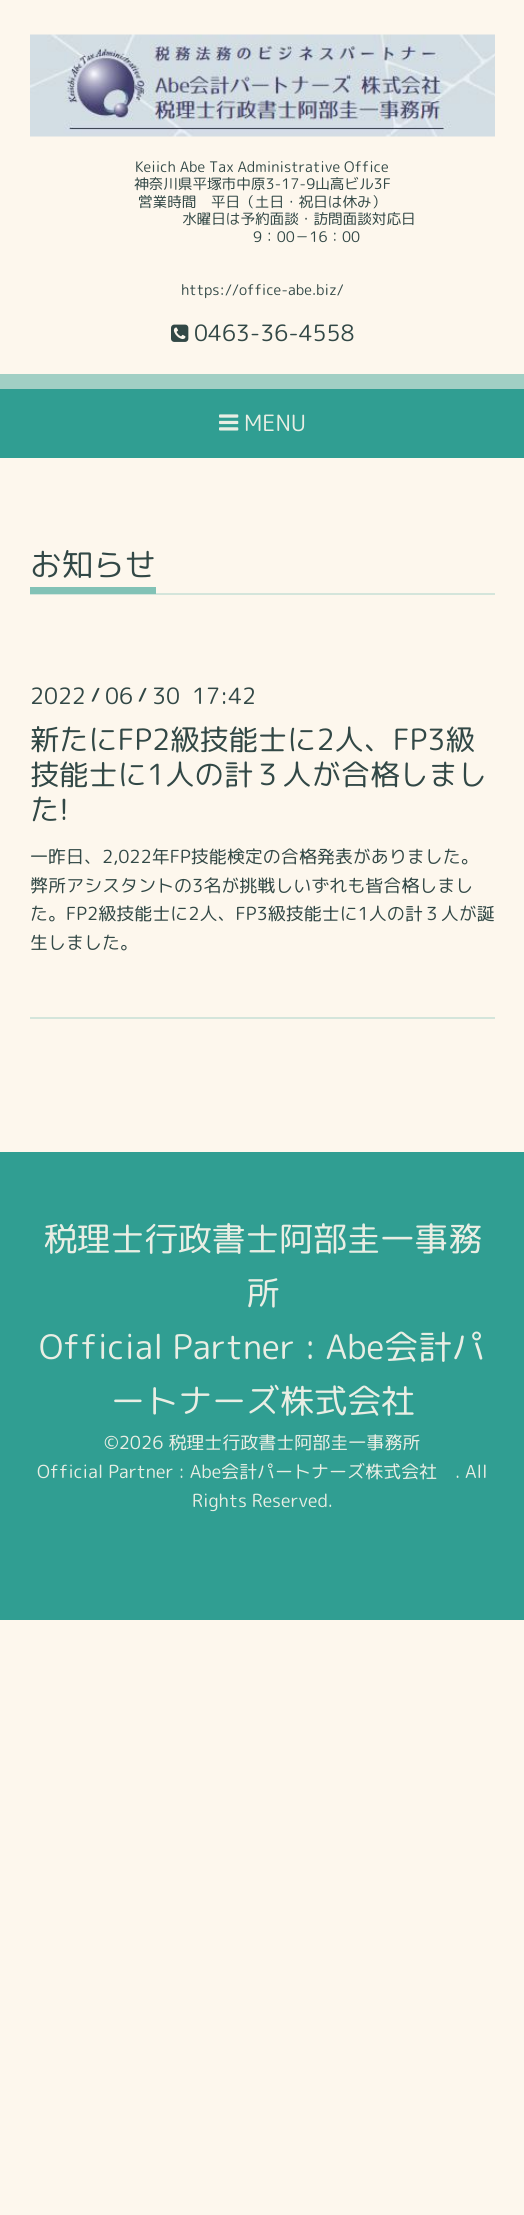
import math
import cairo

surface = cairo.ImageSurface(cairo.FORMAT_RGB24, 524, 2215)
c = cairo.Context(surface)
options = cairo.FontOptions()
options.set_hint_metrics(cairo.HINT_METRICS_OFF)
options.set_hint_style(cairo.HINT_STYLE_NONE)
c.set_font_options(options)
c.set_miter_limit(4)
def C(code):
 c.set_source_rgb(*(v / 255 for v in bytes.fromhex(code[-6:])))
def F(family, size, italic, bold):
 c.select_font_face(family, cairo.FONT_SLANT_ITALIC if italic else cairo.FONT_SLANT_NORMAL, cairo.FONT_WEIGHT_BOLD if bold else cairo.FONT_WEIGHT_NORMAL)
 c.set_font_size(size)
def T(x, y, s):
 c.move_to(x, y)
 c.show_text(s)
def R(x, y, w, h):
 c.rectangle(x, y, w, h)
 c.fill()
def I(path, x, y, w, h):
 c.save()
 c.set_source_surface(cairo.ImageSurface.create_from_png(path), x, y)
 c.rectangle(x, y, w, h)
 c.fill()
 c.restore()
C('fdf7ed')
c.paint()
I('1.png',30,34,465,103)
F('Rounded Mplus 1c',14.6,0,0)
C('324846')
T(135,172,'Keiich Abe Tax Administrative Office')
T(134,189,'神奈川県平塚市中原3-17-9山高ビル3F')
T(138,207,'営業時間　平日（土日・祝日は休み）')
T(182,224,'水曜日は予約面談・訪問面談対応日')
T(253,242,'9：00－16：00')
T(181,295,'https://office-abe.biz/')
I('2.png',171,324,18,18)
F('Rounded Mplus 1c',22.5,0,0)
T(194,341,'0463-36-4558')
C('a1cfc4')
R(0,374,524,15)
C('309e92')
R(0,389,524,69)
I('3.png',219,414,20,17)
C('e9eee4')
T(244,431,'MENU')
C('d4e5db')
R(30,593,465,2)
C('82c2b6')
R(30,587,126,7)
F('Rounded Mplus 1c',31.5,0,0)
C('324846')
T(30,576,'お知らせ')
F('Rounded Mplus 1c',22.5,0,0)
T(30,704,'2022')
F('Rounded Mplus 1c Bold',18,0,1)
T(91,701,'/')
F('Rounded Mplus 1c',22.5,0,0)
T(105,704,'06')
F('Rounded Mplus 1c Bold',18,0,1)
T(138,701,'/')
F('Rounded Mplus 1c',22.5,0,0)
T(152,704,'30  17:42')
F('Rounded Mplus 1c',29.25,0,0)
T(30,750,'新たにFP2級技能士に2人、FP3級')
T(30,785,'技能士に1人の計３人が合格しまし')
T(30,820,'た!')
F('Rounded Mplus 1c',18,0,0)
T(30,863,'一昨日、2,022年FP技能検定の合格発表がありました。')
T(30,892,'弊所アシスタントの3名が挑戦しいずれも皆合格しまし')
T(30,920,'た。FP2級技能士に2人、FP3級技能士に1人の計３人が誕')
T(30,949,'生しました。')
C('d4e5db')
R(30,1017,465,2)
C('309e92')
R(0,1152,524,468)
F('Rounded Mplus 1c',33.75,0,0)
C('e9eee4')
T(43,1251,'税理士行政書士阿部圭一事務')
T(246,1305,'所')
T(39,1359,'Official Partner : Abe会計パ')
T(111,1413,'ートナーズ株式会社')
F('Rounded Mplus 1c',18,0,0)
T(104,1449,'©2026 税理士行政書士阿部圭一事務所')
T(37,1478,'Official Partner : Abe会計パートナーズ株式会社')
T(455,1478,'. All')
T(192,1507,'Rights Reserved.')
surface.write_to_png('o.png')
